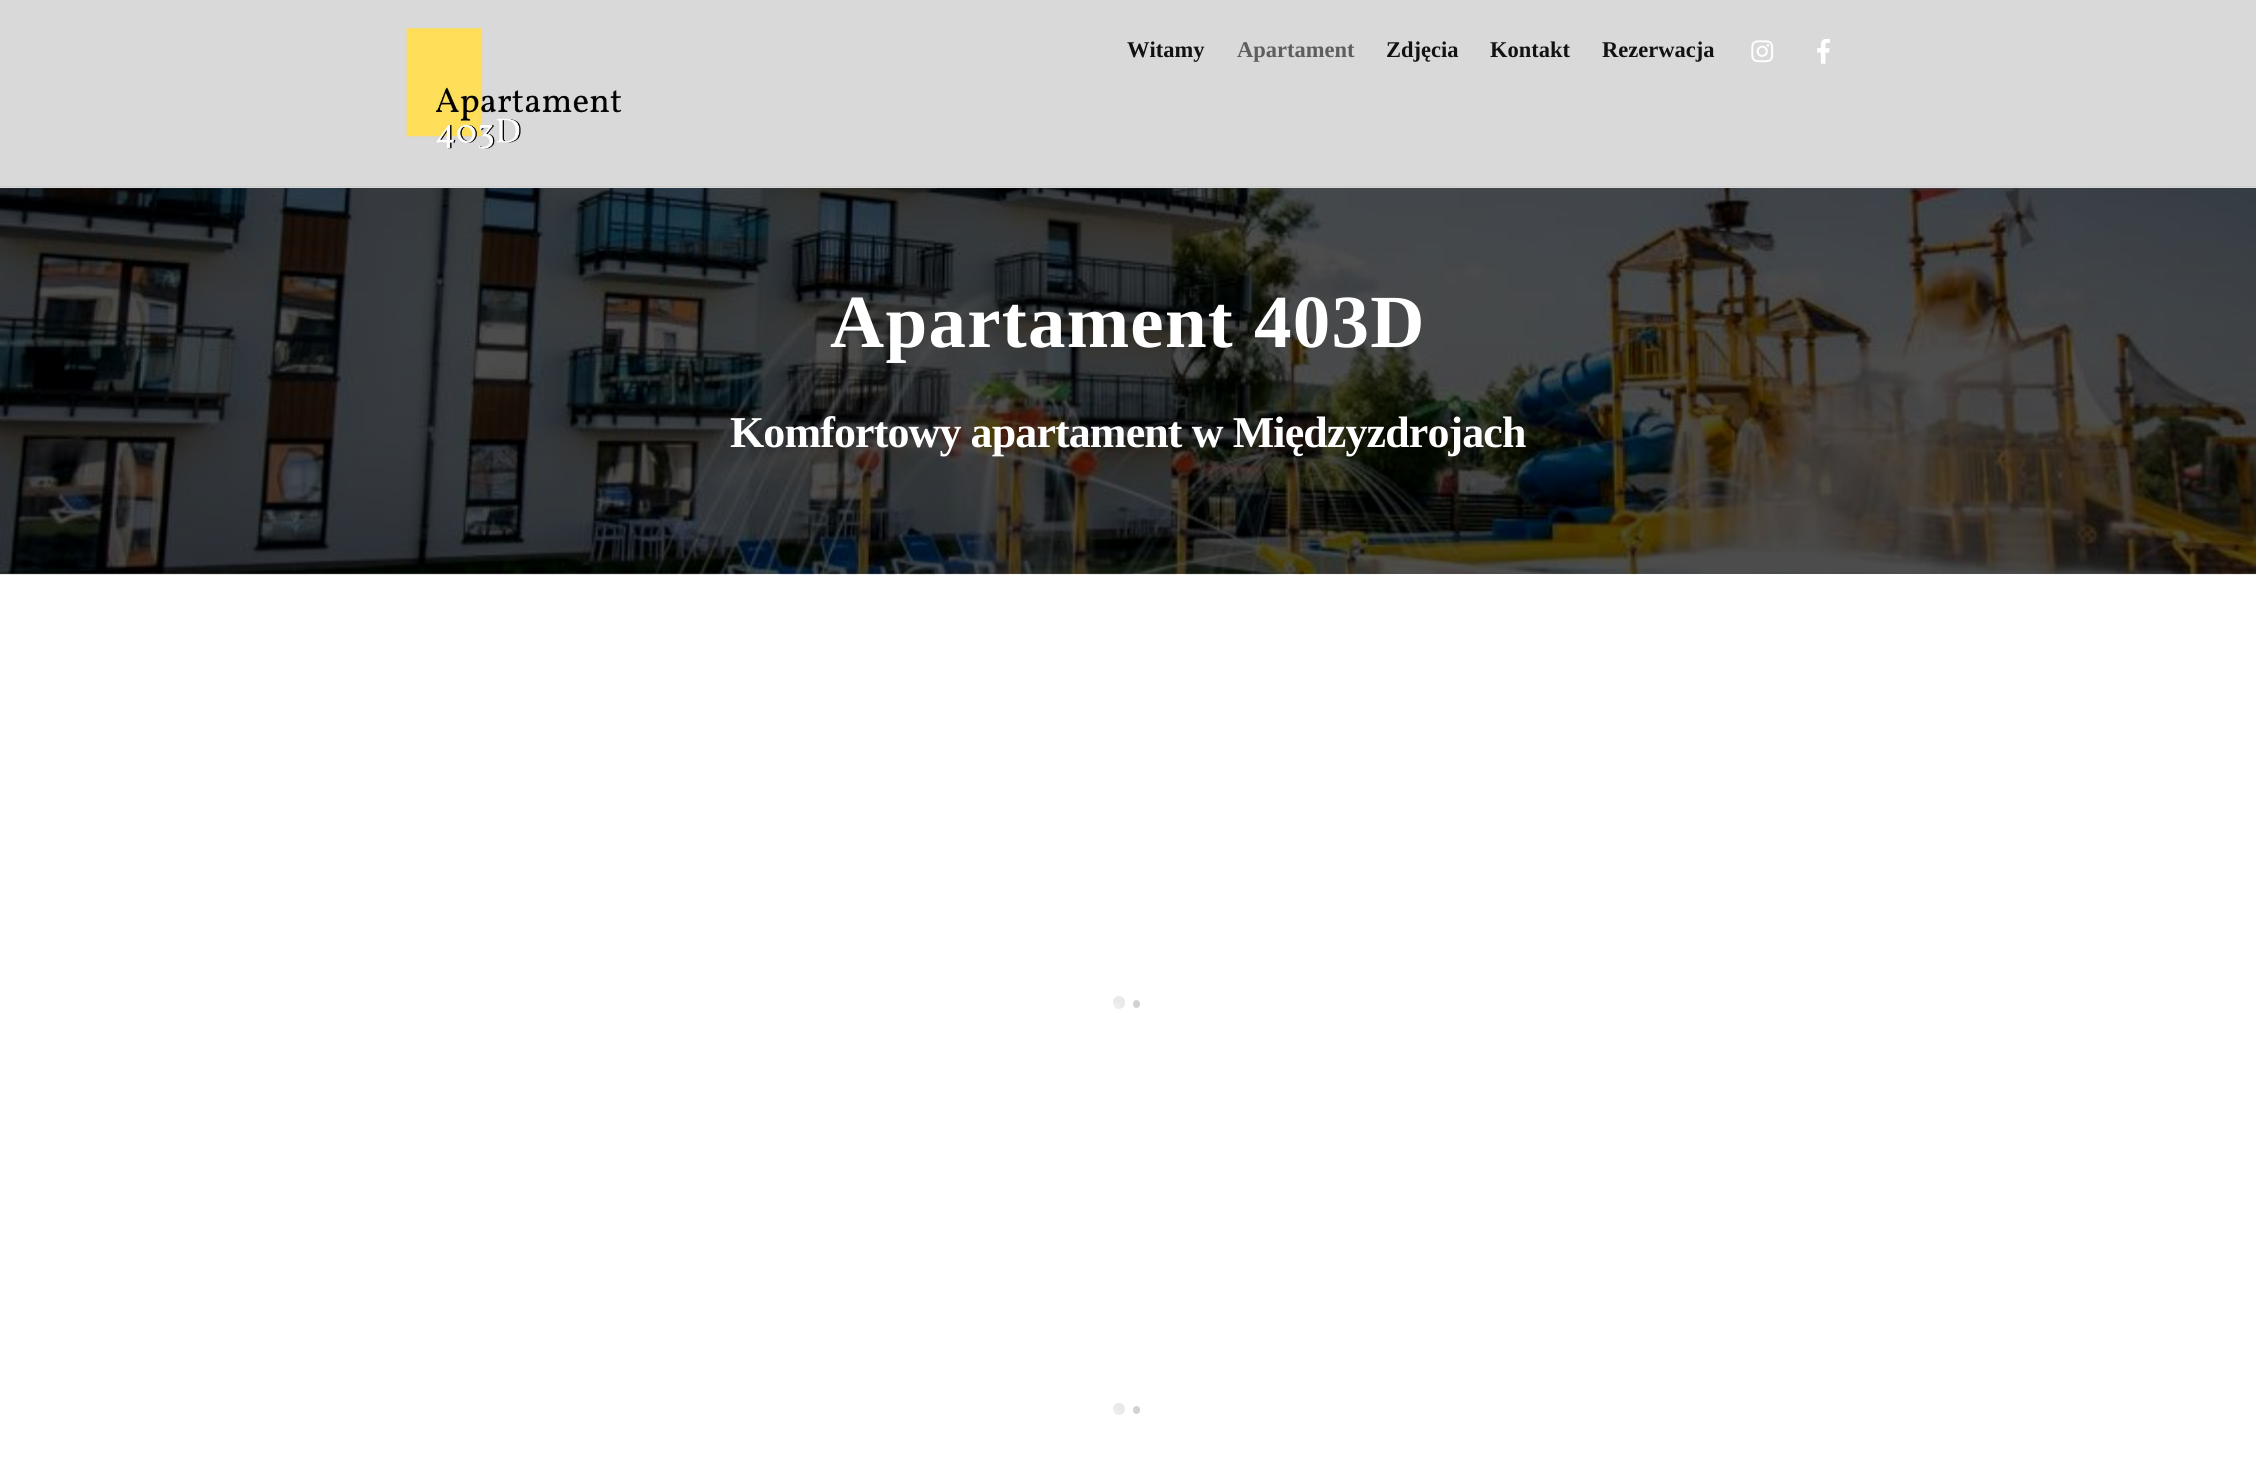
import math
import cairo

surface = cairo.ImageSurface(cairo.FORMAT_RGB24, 2256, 1473)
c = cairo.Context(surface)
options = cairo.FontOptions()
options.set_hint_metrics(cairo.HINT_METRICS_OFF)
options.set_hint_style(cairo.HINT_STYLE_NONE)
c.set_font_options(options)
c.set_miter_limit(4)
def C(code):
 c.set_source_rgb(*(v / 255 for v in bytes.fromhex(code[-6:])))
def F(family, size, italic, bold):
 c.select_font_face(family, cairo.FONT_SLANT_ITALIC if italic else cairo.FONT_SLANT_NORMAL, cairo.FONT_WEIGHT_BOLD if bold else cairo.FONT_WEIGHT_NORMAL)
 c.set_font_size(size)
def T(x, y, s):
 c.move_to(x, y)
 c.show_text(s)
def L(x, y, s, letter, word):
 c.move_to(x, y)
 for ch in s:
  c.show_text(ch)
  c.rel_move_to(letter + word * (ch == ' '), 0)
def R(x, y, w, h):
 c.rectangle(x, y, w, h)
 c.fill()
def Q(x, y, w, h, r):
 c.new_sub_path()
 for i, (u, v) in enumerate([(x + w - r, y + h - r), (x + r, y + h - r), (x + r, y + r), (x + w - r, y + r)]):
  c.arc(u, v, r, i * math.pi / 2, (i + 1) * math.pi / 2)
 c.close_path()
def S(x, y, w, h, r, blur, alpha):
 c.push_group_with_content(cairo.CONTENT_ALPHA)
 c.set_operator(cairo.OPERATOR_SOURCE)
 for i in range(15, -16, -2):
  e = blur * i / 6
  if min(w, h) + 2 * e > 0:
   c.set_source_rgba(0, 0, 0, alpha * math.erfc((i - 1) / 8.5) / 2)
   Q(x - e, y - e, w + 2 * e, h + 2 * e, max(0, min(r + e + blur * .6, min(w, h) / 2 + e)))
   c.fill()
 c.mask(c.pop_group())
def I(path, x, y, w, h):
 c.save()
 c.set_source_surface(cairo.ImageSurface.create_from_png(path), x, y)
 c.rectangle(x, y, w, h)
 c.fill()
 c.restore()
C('ffffff')
c.paint()
C('4d4d4d')
R(0,188,2256,386)
C('d9d9d9')
R(0,0,2256,188)
C('cecece')
R(0,186,2256,1)
I('1.png',404,26,218,123)
F('Liberation Serif',22.5,0,1)
C('121212')
T(1127,57,'Witamy')
C('5e5e5e')
T(1237,57,'Apartament')
C('121212')
T(1386,57,'Zdjęcia')
T(1490,57,'Kontakt')
T(1602,57,'Rezerwacja')
I('2.png',1751,40,23,23)
I('3.png',1817,39,13,25)
I('4.png',0,188,2256,387)
F('Liberation Serif',75,0,1)
C('ffffff')
L(830,347,'Apartament 403D',1.25,0)
F('Liberation Serif',44,0,1)
L(730,447,'Komfortowy apartament w Międzyzdrojach',-.9,0)
C('d2d2d2')
Q(1113,996,12,13,6)
c.fill()
C('ffffff')
S(941,996,188,140,0,31,1)
C('d2d2d2')
Q(1133,1000,7,8,3.5)
c.fill()
c.arc(1119,1409,6,0,2 * math.pi)
c.fill()
C('ffffff')
S(1035,1403,94,62,0,31,1)
C('d2d2d2')
Q(1133,1406,7,8,3.5)
c.fill()
surface.write_to_png('o.png')
